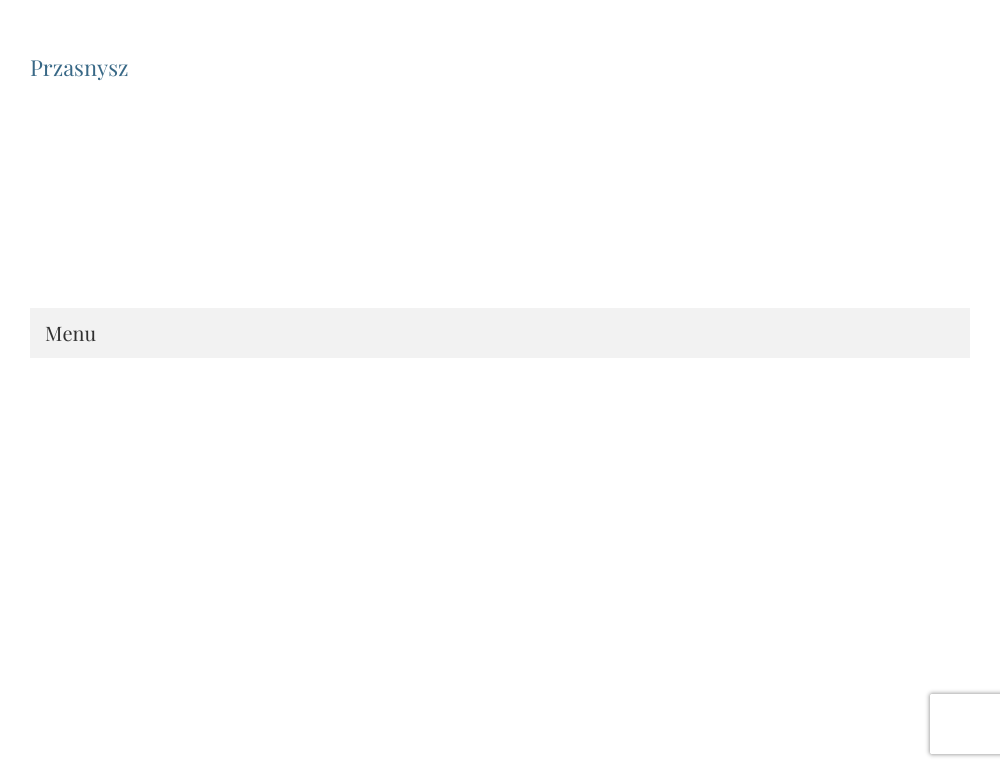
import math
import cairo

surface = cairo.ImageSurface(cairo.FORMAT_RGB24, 1000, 768)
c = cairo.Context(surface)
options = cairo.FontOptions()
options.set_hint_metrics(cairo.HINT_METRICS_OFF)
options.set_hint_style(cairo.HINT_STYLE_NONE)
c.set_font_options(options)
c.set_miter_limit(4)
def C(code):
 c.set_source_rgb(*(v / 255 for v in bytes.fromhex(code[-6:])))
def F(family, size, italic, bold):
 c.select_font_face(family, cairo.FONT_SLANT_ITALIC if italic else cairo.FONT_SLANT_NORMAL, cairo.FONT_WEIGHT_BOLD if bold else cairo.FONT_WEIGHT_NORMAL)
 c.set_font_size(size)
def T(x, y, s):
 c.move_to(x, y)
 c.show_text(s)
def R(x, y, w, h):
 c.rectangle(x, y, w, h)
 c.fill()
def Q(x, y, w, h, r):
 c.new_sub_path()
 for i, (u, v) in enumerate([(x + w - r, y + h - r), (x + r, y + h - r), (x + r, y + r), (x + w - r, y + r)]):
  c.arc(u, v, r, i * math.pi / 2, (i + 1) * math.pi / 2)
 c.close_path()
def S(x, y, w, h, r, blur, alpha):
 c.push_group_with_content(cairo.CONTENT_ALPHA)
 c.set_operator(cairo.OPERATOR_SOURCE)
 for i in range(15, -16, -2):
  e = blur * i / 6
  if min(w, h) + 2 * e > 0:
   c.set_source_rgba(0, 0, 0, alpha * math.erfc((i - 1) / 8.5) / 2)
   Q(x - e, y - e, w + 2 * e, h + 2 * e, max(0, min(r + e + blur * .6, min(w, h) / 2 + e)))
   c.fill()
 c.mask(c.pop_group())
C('ffffff')
c.paint()
F('Playfair Display',22,0,0)
C('386886')
T(30,76,'Przasnysz')
C('f2f2f2')
R(30,308,940,50)
F('Playfair Display',20,0,0)
C('303030')
T(45,341,'Menu')
c.save()
c.set_fill_rule(cairo.FILL_RULE_EVEN_ODD)
c.new_path()
c.move_to(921,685)
c.line_to(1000,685)
c.line_to(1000,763)
c.line_to(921,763)
c.close_path()
c.move_to(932,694)
c.line_to(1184,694)
c.curve_to(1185,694,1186,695,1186,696)
c.line_to(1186,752)
c.curve_to(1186,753,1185,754,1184,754)
c.line_to(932,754)
c.curve_to(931,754,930,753,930,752)
c.line_to(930,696)
c.curve_to(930,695,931,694,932,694)
c.close_path()
c.clip()
C('808080')
S(930,694,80,60,2,2.5,1)
c.restore()
surface.write_to_png('o.png')
